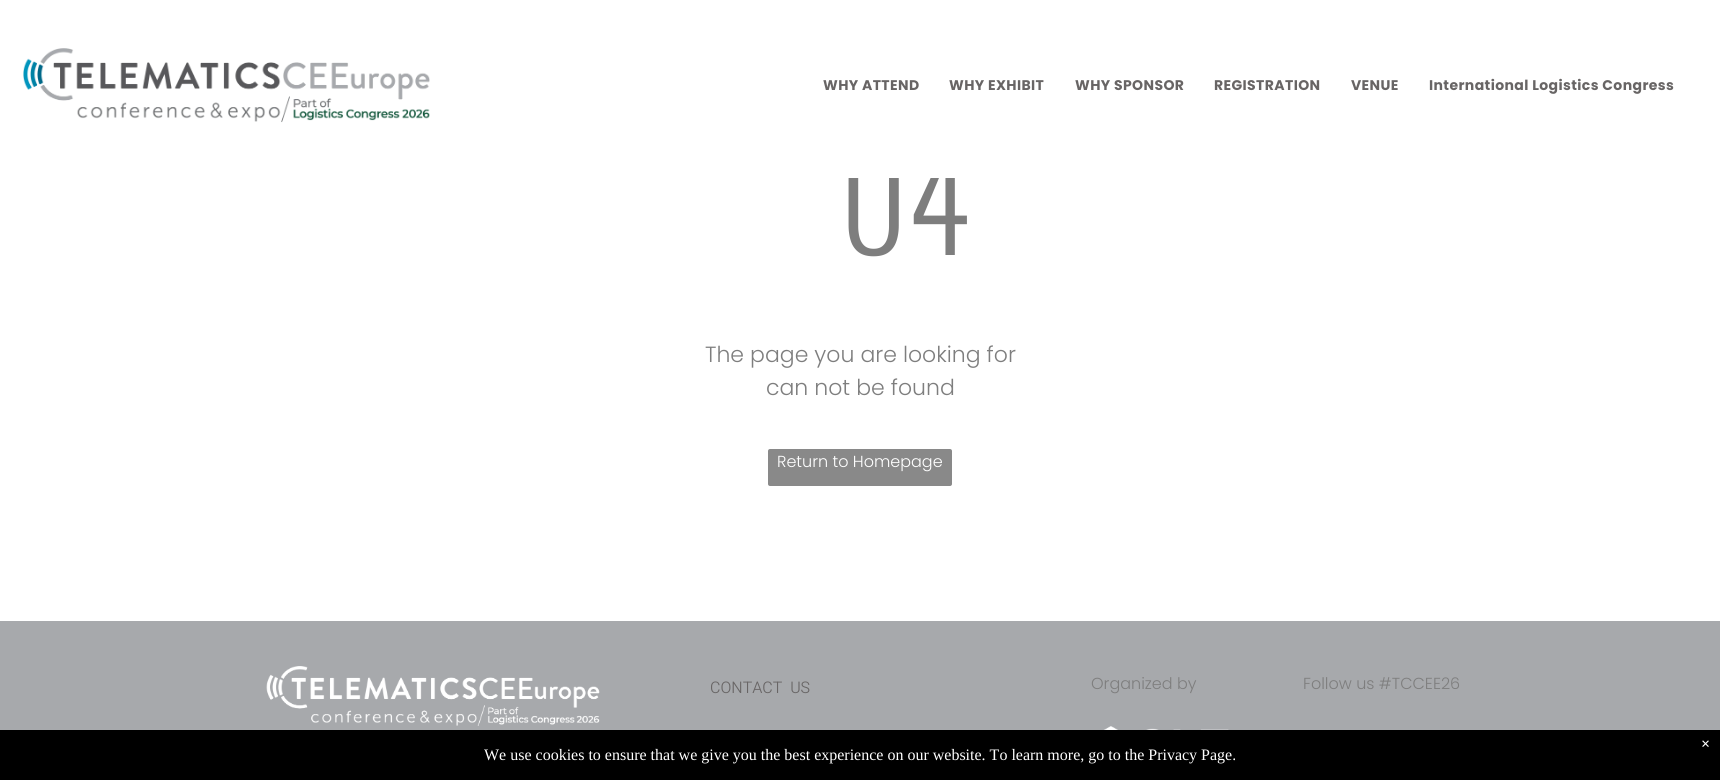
import math
import cairo

surface = cairo.ImageSurface(cairo.FORMAT_RGB24, 1720, 780)
c = cairo.Context(surface)
options = cairo.FontOptions()
options.set_hint_metrics(cairo.HINT_METRICS_OFF)
options.set_hint_style(cairo.HINT_STYLE_NONE)
c.set_font_options(options)
c.set_miter_limit(4)
def C(code):
 c.set_source_rgb(*(v / 255 for v in bytes.fromhex(code[-6:])))
def F(family, size, italic, bold):
 c.select_font_face(family, cairo.FONT_SLANT_ITALIC if italic else cairo.FONT_SLANT_NORMAL, cairo.FONT_WEIGHT_BOLD if bold else cairo.FONT_WEIGHT_NORMAL)
 c.set_font_size(size)
def T(x, y, s):
 c.move_to(x, y)
 c.show_text(s)
def L(x, y, s, letter, word):
 c.move_to(x, y)
 for ch in s:
  c.show_text(ch)
  c.rel_move_to(letter + word * (ch == ' '), 0)
def R(x, y, w, h):
 c.rectangle(x, y, w, h)
 c.fill()
def Q(x, y, w, h, r):
 c.new_sub_path()
 for i, (u, v) in enumerate([(x + w - r, y + h - r), (x + r, y + h - r), (x + r, y + r), (x + w - r, y + r)]):
  c.arc(u, v, r, i * math.pi / 2, (i + 1) * math.pi / 2)
 c.close_path()
def I(path, x, y, w, h):
 c.save()
 c.set_source_surface(cairo.ImageSurface.create_from_png(path), x, y)
 c.rectangle(x, y, w, h)
 c.fill()
 c.restore()
C('ffffff')
c.paint()
F('Oswald Light',130,0,0)
C('7e7e7e')
T(840,255,'04')
C('ffffff')
R(848,148,107,30)
I('1.png',23,48,407,75)
F('Poppins',14,0,1)
C('686565')
L(823,90,'WHY ATTEND',.4,0)
L(949,90,'WHY EXHIBIT',.4,0)
L(1075,90,'WHY SPONSOR',.4,0)
L(1214,90,'REGISTRATION',.4,0)
L(1351,90,'VENUE',.4,0)
L(1429,90,'International Logistics Congress',.4,0)
F('Poppins Light',22,0,0)
C('7e7e7e')
T(705,362,'The page you are looking for')
T(766,395,'can not be found')
C('898989')
Q(768,449,184,37,2)
c.fill()
F('Poppins Light',16,0,0)
C('ffffff')
T(777,467,'Return to Homepage')
C('a7a9ac')
R(0,621,1720,109)
I('2.png',266,666,334,60)
F('Heebo Light',16,0,0)
C('686565')
T(710,693,'CONTACT  US')
F('Poppins Light',16,0,0)
C('7e7e7e')
T(1091,689,'Organized by')
I('3.png',1103,726,126,4)
T(1303,689,'Follow us #TCCEE26')
C('000000')
R(0,730,1720,50)
F('Liberation Serif',16,0,1)
C('ffffff')
T(1701,749,'×')
F('Liberation Serif',16,0,0)
T(484,760,'We use cookies to ensure that we give you the best experience on our website. To learn more, go to the Privacy Page.')
surface.write_to_png('o.png')
